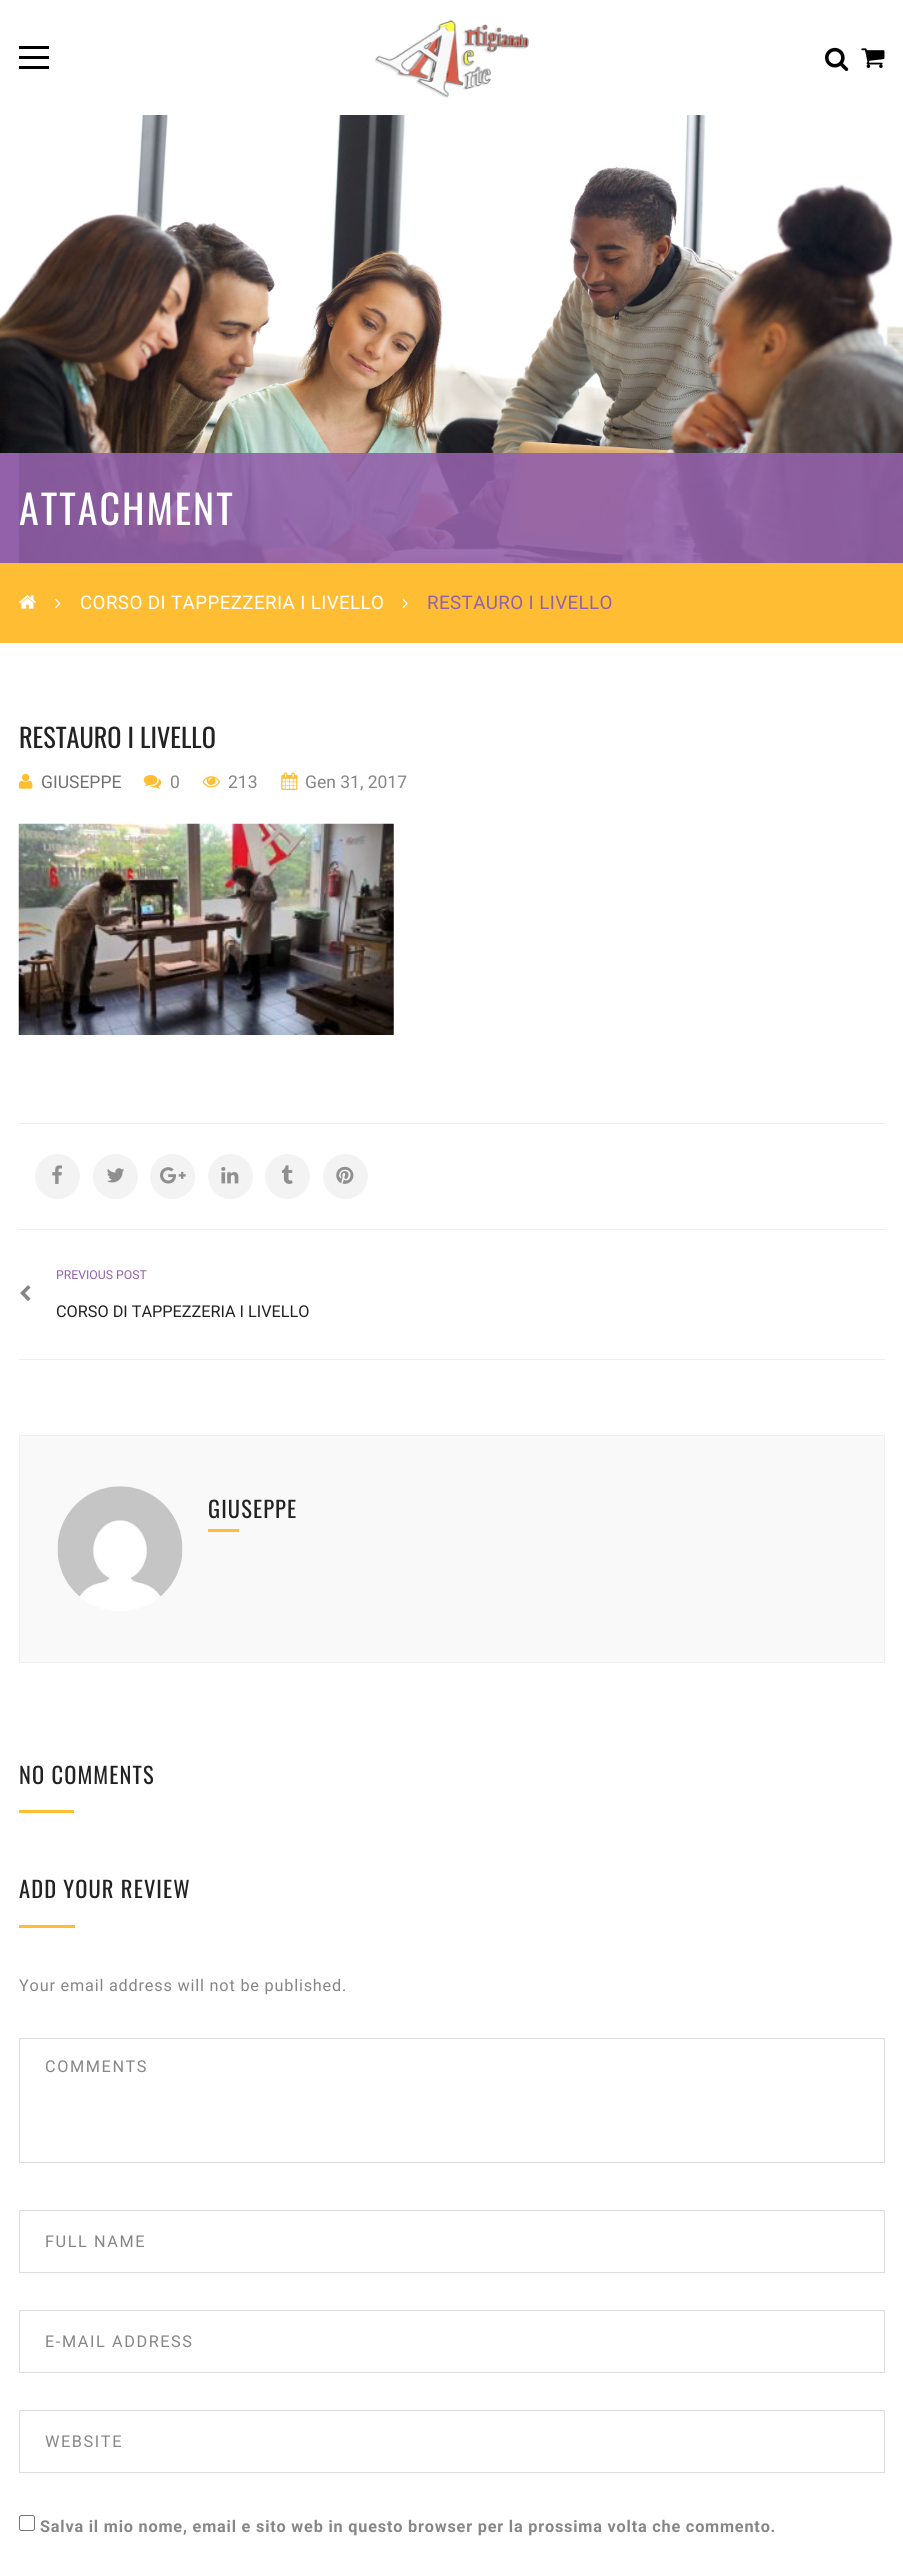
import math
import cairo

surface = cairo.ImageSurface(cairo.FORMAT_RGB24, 903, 2560)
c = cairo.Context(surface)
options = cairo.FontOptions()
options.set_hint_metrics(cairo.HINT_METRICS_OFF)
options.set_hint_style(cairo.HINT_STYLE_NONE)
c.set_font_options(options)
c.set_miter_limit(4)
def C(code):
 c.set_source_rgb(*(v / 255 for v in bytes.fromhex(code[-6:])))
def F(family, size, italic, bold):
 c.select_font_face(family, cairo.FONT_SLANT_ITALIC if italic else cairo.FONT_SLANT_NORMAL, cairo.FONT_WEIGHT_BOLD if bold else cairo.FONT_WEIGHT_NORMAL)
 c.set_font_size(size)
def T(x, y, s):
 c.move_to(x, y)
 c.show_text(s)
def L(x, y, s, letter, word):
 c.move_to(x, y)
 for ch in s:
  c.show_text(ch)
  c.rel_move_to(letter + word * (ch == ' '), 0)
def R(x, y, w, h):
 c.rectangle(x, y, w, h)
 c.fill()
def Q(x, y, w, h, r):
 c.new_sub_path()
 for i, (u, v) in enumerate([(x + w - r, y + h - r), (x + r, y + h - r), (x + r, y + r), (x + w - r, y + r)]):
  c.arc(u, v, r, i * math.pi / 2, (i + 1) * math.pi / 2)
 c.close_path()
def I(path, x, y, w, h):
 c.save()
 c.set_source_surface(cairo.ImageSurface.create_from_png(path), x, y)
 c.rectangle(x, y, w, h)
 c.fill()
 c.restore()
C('ffffff')
c.paint()
C('000000')
R(19,46,30,3)
R(19,56,30,3)
R(19,66,30,3)
I('1.png',375,20,154,78)
I('2.png',825,47,24,25)
I('3.png',861,48,24,20)
I('4.png',0,115,903,448)
c.set_source_rgba(0.573,0.38,0.667,0.9)
R(19,453,866,110)
C('9261aa')
R(0,453,19,110)
F('Oswald',40,0,0)
C('ffffff')
L(19,525,'ATTACHMENT',2,0)
c.set_source_rgba(0.573,0.38,0.667,0.9)
R(885,453,18,110)
C('ffbd33')
R(0,563,903,80)
I('5.png',19,595,17,14)
I('6.png',55,599,6,9)
F('Roboto',18.75,0,0)
C('ffffff')
L(80,609,'CORSO DI TAPPEZZERIA I LIVELLO',.4,0)
I('7.png',402,599,6,9)
C('9261aa')
L(427,609,'RESTAURO I LIVELLO',.4,0)
F('Oswald',26.25,0,0)
C('222222')
T(19,748,'RESTAURO I LIVELLO')
I('8.png',18,773,15,16)
F('Roboto',17.5,0,0)
C('727272')
T(41,788,'GIUSEPPE')
I('9.png',143,775,19,14)
C('868686')
T(170,788,'0')
I('10.png',202,776,18,12)
T(228,788,'213')
I('11.png',281,772,17,18)
T(305,788,'Gen 31, 2017')
I('12.png',18,823,376,212)
C('eeeeee')
R(19,1123,866,1)
R(19,1229,866,1)
C('f3f3f3')
c.arc(57.5,1176.5,22.5,0,2 * math.pi)
c.fill()
I('13.png',52,1165,10,19)
c.arc(115.5,1176.5,22.5,0,2 * math.pi)
c.fill()
I('14.png',107,1168,17,15)
c.arc(172.5,1176.5,22.5,0,2 * math.pi)
c.fill()
I('15.png',160,1167,26,17)
c.arc(230.5,1176.5,22.5,0,2 * math.pi)
c.fill()
I('16.png',221,1167,18,17)
c.arc(287.5,1176.5,22.5,0,2 * math.pi)
c.fill()
I('17.png',282,1165,11,19)
c.arc(345.5,1176.5,22.5,0,2 * math.pi)
c.fill()
I('18.png',336,1166,18,18)
C('eeeeee')
R(19,1359,866,1)
I('19.png',20,1285,11,16)
F('Roboto',12.25,0,0)
C('9261aa')
T(56,1279,'PREVIOUS POST')
F('Roboto',16.25,0,0)
C('222222')
T(56,1317,'CORSO DI TAPPEZZERIA I LIVELLO')
C('f9f9f9')
c.rectangle(19.5,1435.5,865,227)
c.fill_preserve()
C('eeeeee')
c.set_line_width(1)
c.stroke()
I('20.png',57,1486,126,125)
F('Oswald',22.5,0,0)
C('222222')
L(208,1518,'GIUSEPPE',1.1,0)
C('ffbd33')
R(208,1529,31,3)
C('222222')
L(19,1784,'NO COMMENTS',1.1,0)
C('ffbd33')
R(19,1810,55,3)
C('222222')
L(19,1898,'ADD YOUR REVIEW',1.1,0)
C('ffbd33')
R(19,1925,56,3)
F('Roboto',16.25,0,0)
C('868686')
L(19,1991,'Your email address will not be published.',.8,0)
c.rectangle(19.5,2038.5,865,124)
C('dddddd')
c.stroke()
C('868686')
L(45,2072,'COMMENTS',1.6,0)
c.rectangle(19.5,2210.5,865,62)
C('dddddd')
c.stroke()
C('868686')
L(45,2247,'FULL NAME',1.6,0)
c.rectangle(19.5,2310.5,865,62)
C('dddddd')
c.stroke()
C('868686')
L(45,2347,'E-MAIL ADDRESS',1.6,0)
c.rectangle(19.5,2410.5,865,62)
C('dddddd')
c.stroke()
C('868686')
L(45,2447,'WEBSITE',1.6,0)
Q(19.5,2515.5,15,15,2)
C('767676')
c.stroke()
F('Roboto',16.25,0,1)
C('868686')
L(40,2532,'Salva il mio nome, email e sito web in questo browser per la prossima volta che commento.',.8,0)
surface.write_to_png('o.png')
